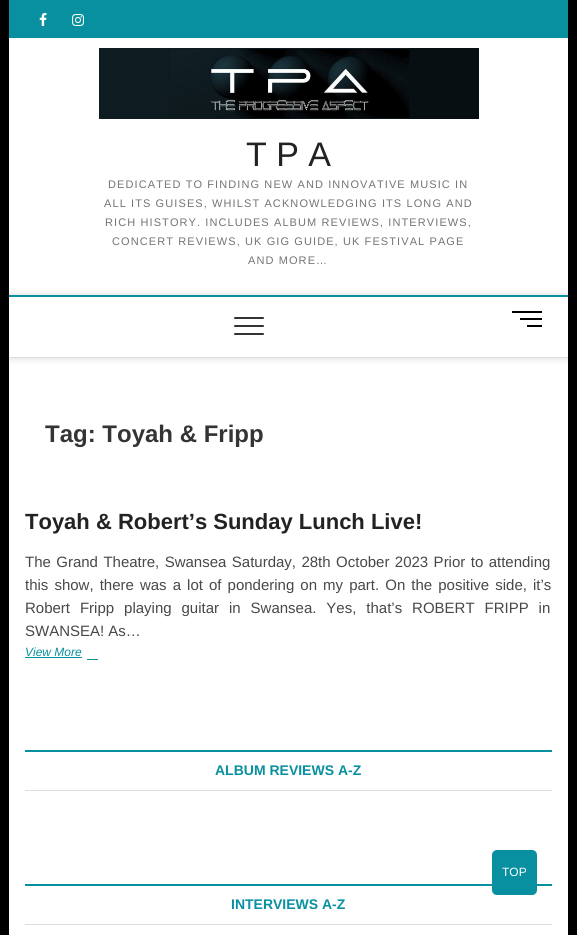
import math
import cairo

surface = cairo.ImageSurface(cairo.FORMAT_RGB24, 577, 935)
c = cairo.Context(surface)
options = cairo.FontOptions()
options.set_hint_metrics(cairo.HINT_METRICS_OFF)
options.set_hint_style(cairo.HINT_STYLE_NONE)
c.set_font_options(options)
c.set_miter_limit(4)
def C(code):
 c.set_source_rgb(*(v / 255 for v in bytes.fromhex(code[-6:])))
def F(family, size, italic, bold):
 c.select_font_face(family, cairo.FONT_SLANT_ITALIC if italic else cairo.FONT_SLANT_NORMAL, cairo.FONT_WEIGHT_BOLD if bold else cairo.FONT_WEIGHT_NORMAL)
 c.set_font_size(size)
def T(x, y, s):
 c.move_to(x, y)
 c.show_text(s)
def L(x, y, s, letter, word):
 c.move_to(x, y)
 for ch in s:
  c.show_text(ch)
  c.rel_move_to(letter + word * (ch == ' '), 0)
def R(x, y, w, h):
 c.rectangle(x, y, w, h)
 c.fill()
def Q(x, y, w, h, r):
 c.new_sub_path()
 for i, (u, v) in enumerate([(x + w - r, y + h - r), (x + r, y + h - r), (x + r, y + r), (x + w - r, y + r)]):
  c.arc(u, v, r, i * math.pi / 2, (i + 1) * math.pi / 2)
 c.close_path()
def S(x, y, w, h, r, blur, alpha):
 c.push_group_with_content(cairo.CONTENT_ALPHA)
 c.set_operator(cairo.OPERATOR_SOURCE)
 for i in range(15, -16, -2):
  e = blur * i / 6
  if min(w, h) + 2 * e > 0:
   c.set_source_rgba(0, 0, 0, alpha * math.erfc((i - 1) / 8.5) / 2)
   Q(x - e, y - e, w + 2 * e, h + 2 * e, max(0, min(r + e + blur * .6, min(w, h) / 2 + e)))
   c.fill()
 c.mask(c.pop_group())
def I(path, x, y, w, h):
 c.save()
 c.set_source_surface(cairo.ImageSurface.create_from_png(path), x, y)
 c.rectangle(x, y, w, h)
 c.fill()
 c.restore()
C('000000')
c.paint()
C('ffffff')
R(9,38,559,897)
C('0890a0')
R(9,0,559,38)
I('1.png',39,13,8,13)
I('2.png',72,14,12,12)
I('3.png',99,48,380,71)
F('Liberation Sans',34,0,0)
C('222222')
T(246,166,'T P A')
F('Liberation Sans',11,0,0)
C('747474')
L(108,188,'DEDICATED TO FINDING NEW AND INNOVATIVE MUSIC IN',1.1,0)
L(104,207,'ALL ITS GUISES, WHILST ACKNOWLEDGING ITS LONG AND',1.1,0)
L(105,226,'RICH HISTORY. INCLUDES ALBUM REVIEWS, INTERVIEWS,',1.1,0)
L(112,245,'CONCERT REVIEWS, UK GIG GUIDE, UK FESTIVAL PAGE',1.1,0)
L(248,264,'AND MORE…',1.1,0)
c.save()
c.rectangle(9,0,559,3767)
c.clip()
c.set_fill_rule(cairo.FILL_RULE_EVEN_ODD)
c.new_path()
c.move_to(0,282)
c.line_to(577,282)
c.line_to(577,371)
c.line_to(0,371)
c.close_path()
c.move_to(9,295)
c.line_to(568,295)
c.line_to(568,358)
c.line_to(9,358)
c.close_path()
c.clip()
C('000000')
S(9,295,559,63,0,4,.15)
c.restore()
C('0890a0')
R(9,295,559,2)
C('dddddd')
R(9,357,559,1)
C('333333')
Q(234,325,30,2,1)
c.fill()
Q(234,317,30,2,1)
c.fill()
Q(234,333,30,2,1)
c.fill()
C('000000')
R(520,318,22,2)
R(512,311,30,2)
R(527,325,15,2)
F('Liberation Sans',24,0,1)
C('343434')
T(45,442,'Tag: Toyah & Fripp')
F('Liberation Sans',22,0,1)
C('222222')
T(25,529,'Toyah & Robert’s Sunday Lunch Live!')
F('Liberation Sans',15,0,0)
C('484848')
L(25,567,'The Grand Theatre, Swansea Saturday, 28th October 2023 Prior to attending',0,1.25)
L(25,590,'this show, there was a lot of pondering on my part. On the positive side, it’s',0,1.9)
L(25,613,'Robert Fripp playing guitar in Swansea. Yes, that’s ROBERT FRIPP in',0,5.75)
T(25,636,'SWANSEA! As…')
F('Liberation Sans',12,1,0)
C('0890a0')
T(25,656,'View More')
R(25,657,57,1)
R(87,659,11,1)
R(25,750,527,2)
C('dddddd')
R(25,790,527,1)
F('Liberation Sans',14,0,1)
C('0890a0')
T(215,775,'ALBUM REVIEWS A-Z')
R(25,884,527,2)
C('dddddd')
R(25,924,527,1)
C('0890a0')
T(231,909,'INTERVIEWS A-Z')
c.save()
c.rectangle(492,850,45,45)
c.clip()
C('000000')
S(492,852,45,45,5,1.5,.08)
c.restore()
Q(492,850,45,45,5)
c.fill()
F('Liberation Sans',12,0,0)
C('ffffff')
T(502,876,'TOP')
surface.write_to_png('o.png')
